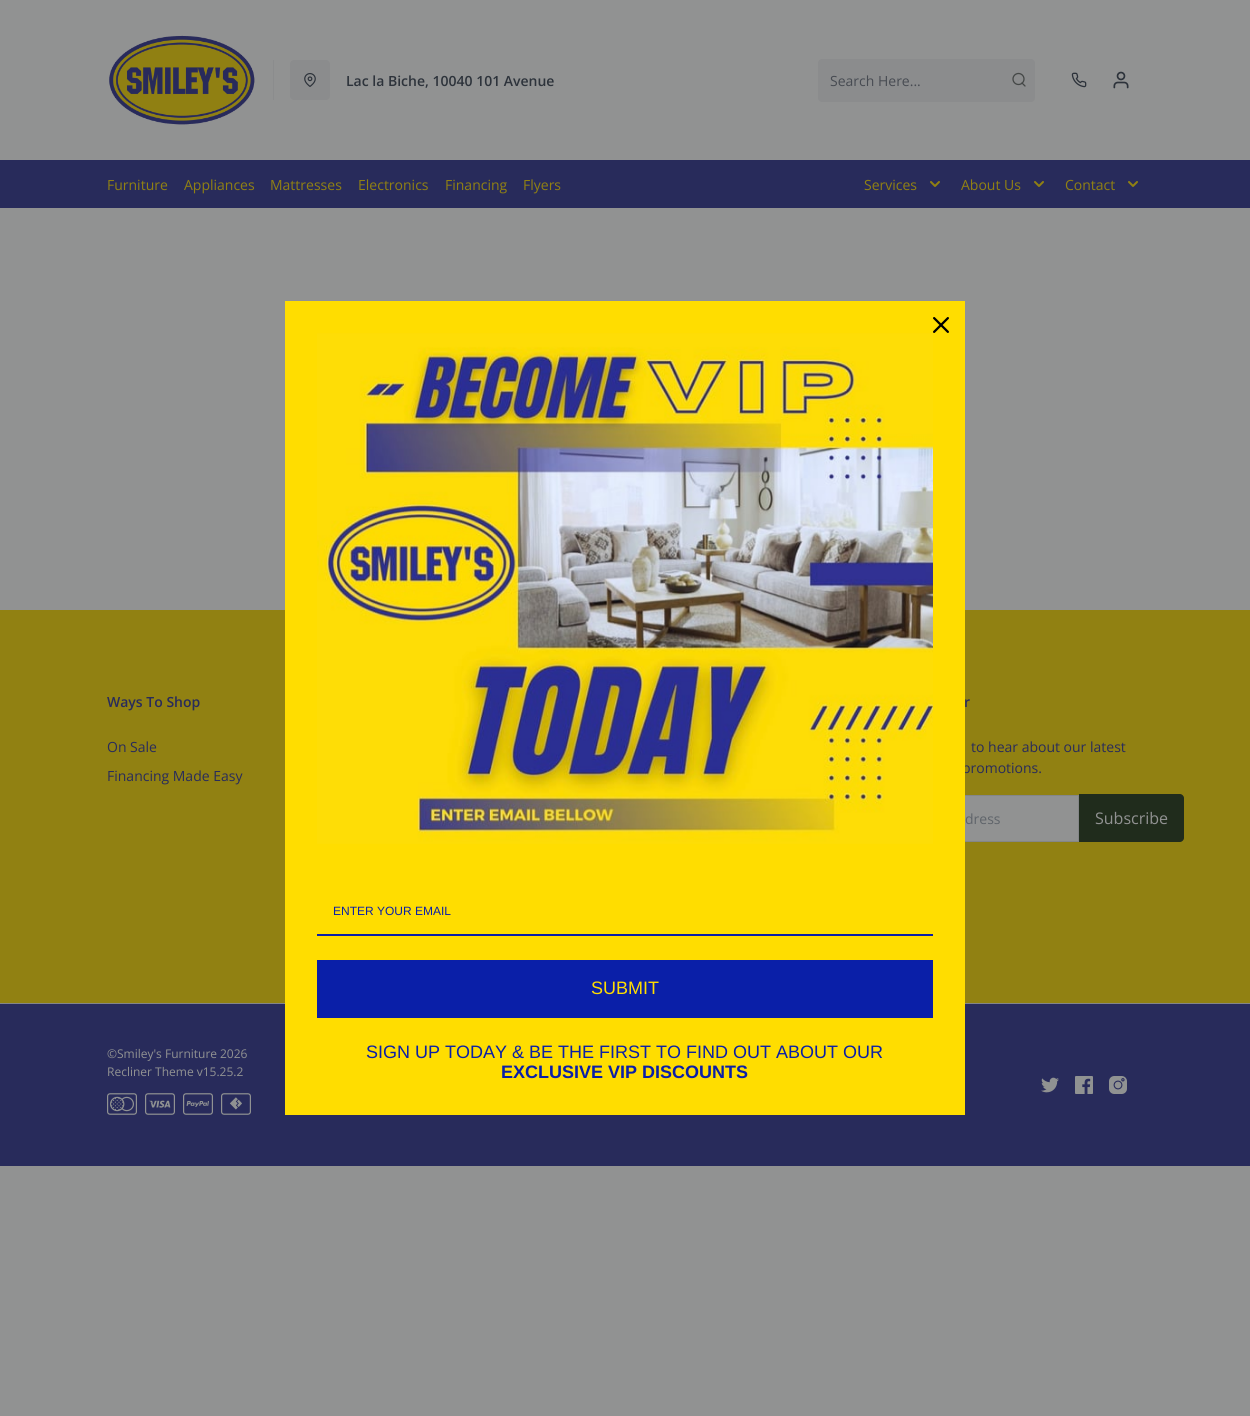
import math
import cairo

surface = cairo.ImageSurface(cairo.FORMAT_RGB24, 1250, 1416)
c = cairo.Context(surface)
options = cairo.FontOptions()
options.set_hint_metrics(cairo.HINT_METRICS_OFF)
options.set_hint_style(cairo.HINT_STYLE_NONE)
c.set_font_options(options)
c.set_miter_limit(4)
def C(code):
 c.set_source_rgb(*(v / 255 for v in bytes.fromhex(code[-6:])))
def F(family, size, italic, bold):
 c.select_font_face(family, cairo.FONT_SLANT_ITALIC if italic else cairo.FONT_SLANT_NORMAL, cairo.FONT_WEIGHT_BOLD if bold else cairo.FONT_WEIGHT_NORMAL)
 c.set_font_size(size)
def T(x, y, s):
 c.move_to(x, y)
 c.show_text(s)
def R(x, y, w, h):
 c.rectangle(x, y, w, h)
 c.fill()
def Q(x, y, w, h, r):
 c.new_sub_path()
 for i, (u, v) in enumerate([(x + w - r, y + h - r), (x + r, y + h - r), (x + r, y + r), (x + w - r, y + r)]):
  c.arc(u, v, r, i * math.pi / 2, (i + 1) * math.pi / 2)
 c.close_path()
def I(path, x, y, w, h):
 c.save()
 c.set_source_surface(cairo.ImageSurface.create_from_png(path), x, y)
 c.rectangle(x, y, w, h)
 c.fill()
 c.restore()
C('919292')
c.paint()
I('1.png',109,35,146,90)
C('8b8c8d')
R(273,60,1,40)
Q(290,60,40,40,4)
c.fill()
I('2.png',304,73,12,14)
F('Open Sans SemiBold',14,0,0)
C('2d333b')
T(346,86,'Lac la Biche, 10040 101 Avenue')
C('8b8c8d')
Q(818,59,217,43,4)
c.fill()
F('Open Sans',14,0,0)
C('474b52')
T(830,86,'Search Here...')
c.new_path()
c.arc(1018.5,79,5.5,0,2 * math.pi)
C('444746')
c.set_line_width(1.3)
c.stroke()
c.new_path()
c.move_to(1025,86)
c.line_to(1022,83)
c.set_line_cap(cairo.LINE_CAP_ROUND)
c.set_line_join(cairo.LINE_JOIN_ROUND)
c.stroke()
I('3.png',1071,72,16,16)
I('4.png',1113,71,16,18)
C('282b5b')
R(0,160,1250,48)
C('918112')
T(107,190,'Furniture')
T(184,190,'Appliances')
T(270,190,'Mattresses')
T(358,190,'Electronics')
T(445,190,'Financing')
T(523,190,'Flyers')
T(864,190,'Services')
I('5.png',930,181,10,6)
T(961,190,'About Us')
I('5.png',1034,181,10,6)
T(1065,190,'Contact')
I('5.png',1128,181,10,6)
R(0,610,1250,393)
C('848688')
R(0,1003,1250,1)
F('Open Sans SemiBold',14,0,0)
C('282b5b')
T(107,707,'Ways To Shop')
F('Open Sans',14,0,0)
T(107,752,'On Sale')
T(107,781,'Financing Made Easy')
F('Open Sans SemiBold',14,0,0)
T(964,707,'r')
F('Open Sans',14,0,0)
T(971,752,'to hear about our latest')
T(962,773,'promotions.')
C('919292')
R(965,796,113,45)
c.rectangle(896.5,795.5,182,46)
C('848688')
c.set_line_width(1)
c.set_line_cap(cairo.LINE_CAP_BUTT)
c.set_line_join(cairo.LINE_JOIN_MITER)
c.stroke()
C('5f646a')
T(965,824,'dress')
C('202c1c')
c.new_path()
c.move_to(1079,794)
c.line_to(1180,794)
c.curve_to(1182,794,1184,796,1184,798)
c.line_to(1184,838)
c.curve_to(1184,840,1182,842,1180,842)
c.line_to(1079,842)
c.close_path()
c.fill()
F('Open Sans',16,0,0)
C('919292')
T(1095,824,'Subscribe')
C('282b5b')
R(0,1004,1250,162)
F('Open Sans',12,0,0)
C('919292')
T(107,1058,'©Smiley\'s Furniture')
T(220,1058,'2026')
T(107,1076,'Recliner Theme v15.25.2')
I('6.png',107,1093,30,22)
I('7.png',145,1093,30,22)
I('8.png',183,1093,30,22)
I('9.png',221,1093,30,22)
I('10.png',1041,1077,18,16)
I('11.png',1075,1076,18,18)
I('12.png',1109,1076,18,18)
C('ffdd00')
R(285,301,680,814)
I('13.png',933,317,16,16)
I('14.png',317,333,616,511)
C('0a1fa8')
R(317,934,616,2)
F('Liberation Sans',12,0,0)
T(333,915,'ENTER YOUR EMAIL')
R(317,960,616,58)
F('Liberation Sans',18,0,0)
C('ffdd00')
T(591,994,'SUBMIT')
C('0a1fa8')
T(366,1058,'SIGN UP TODAY & BE THE FIRST TO FIND OUT ABOUT OUR')
F('Liberation Sans',18,0,1)
T(501,1078,'EXCLUSIVE VIP DISCOUNTS')
surface.write_to_png('o.png')
